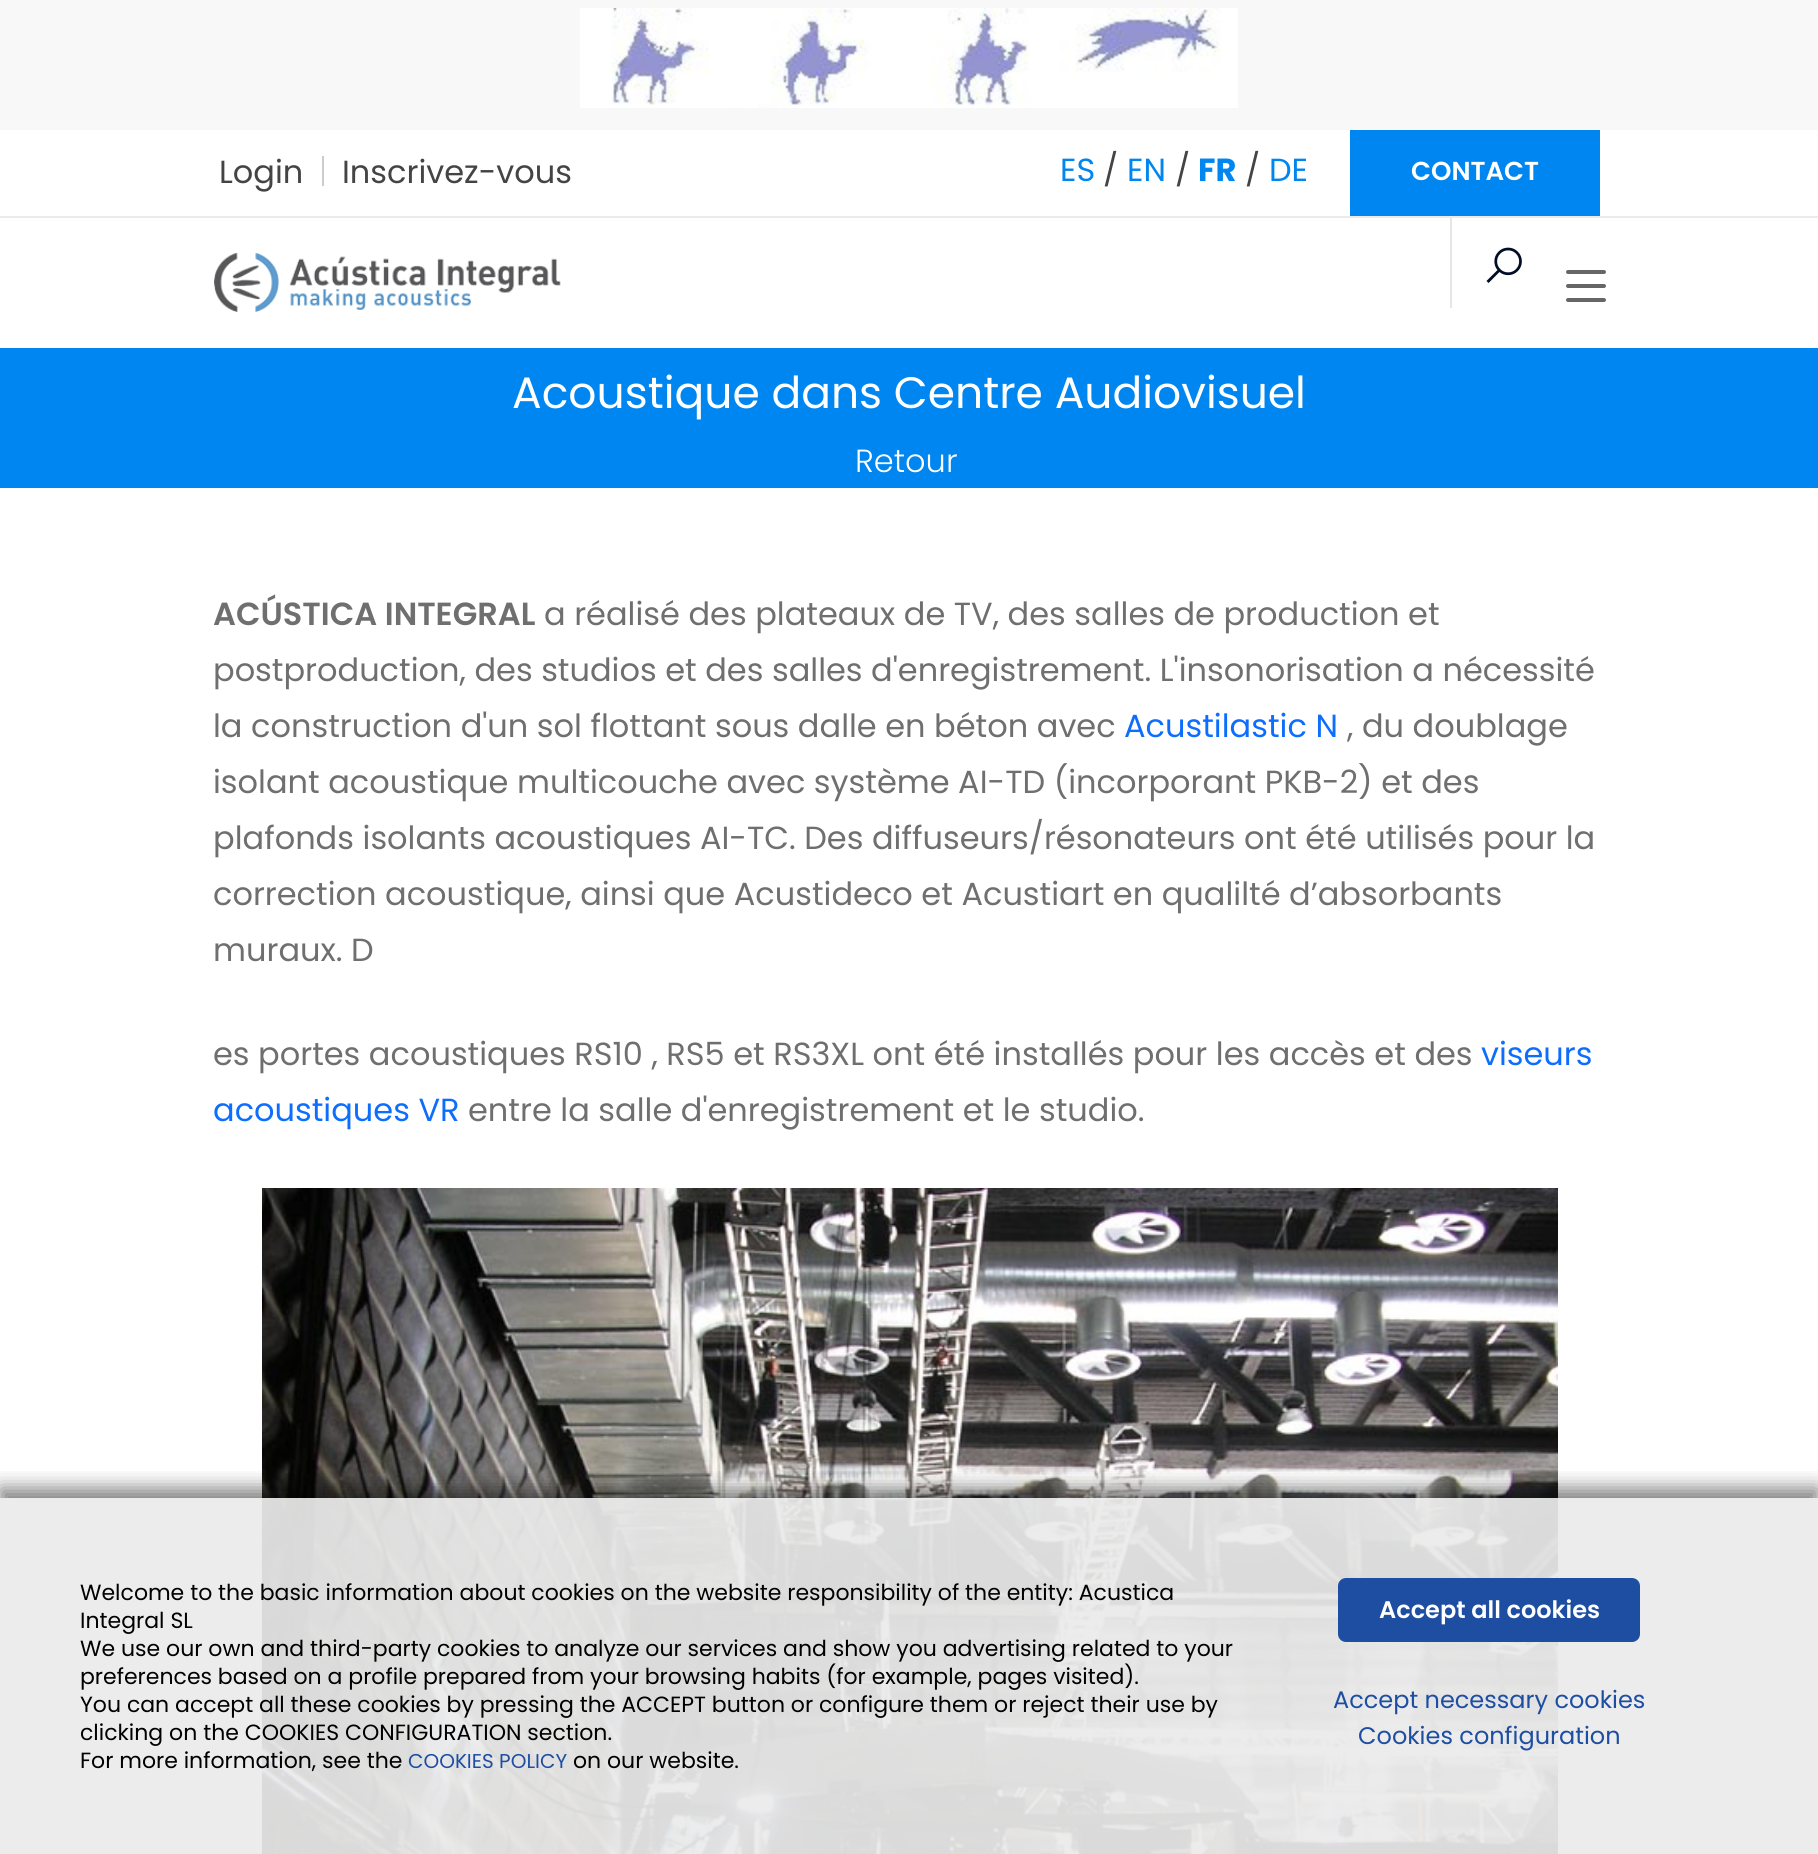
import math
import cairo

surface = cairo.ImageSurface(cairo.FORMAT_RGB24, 1818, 1854)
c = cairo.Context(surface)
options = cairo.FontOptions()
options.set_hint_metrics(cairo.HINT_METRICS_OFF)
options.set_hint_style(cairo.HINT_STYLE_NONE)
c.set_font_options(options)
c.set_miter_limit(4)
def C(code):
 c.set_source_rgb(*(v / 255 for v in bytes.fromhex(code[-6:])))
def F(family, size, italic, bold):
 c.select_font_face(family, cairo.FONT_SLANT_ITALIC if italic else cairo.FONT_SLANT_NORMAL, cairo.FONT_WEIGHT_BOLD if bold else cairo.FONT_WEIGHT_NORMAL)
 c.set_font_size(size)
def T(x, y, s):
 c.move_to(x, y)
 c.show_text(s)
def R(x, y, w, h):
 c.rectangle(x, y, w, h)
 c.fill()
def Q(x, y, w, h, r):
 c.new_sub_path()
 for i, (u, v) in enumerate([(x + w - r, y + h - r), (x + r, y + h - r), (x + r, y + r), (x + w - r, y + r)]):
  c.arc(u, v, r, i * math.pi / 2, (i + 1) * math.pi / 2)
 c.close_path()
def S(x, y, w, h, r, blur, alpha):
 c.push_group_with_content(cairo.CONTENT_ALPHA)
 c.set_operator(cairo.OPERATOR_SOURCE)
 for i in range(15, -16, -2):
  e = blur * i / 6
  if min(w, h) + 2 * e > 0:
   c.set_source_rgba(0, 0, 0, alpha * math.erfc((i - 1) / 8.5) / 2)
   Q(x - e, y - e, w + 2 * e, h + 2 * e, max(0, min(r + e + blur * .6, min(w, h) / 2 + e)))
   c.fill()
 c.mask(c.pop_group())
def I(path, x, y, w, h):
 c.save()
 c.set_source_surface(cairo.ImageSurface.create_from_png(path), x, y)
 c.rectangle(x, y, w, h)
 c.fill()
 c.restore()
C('f8f8f8')
c.paint()
I('1.png',580,8,658,100)
C('ffffff')
R(0,130,1818,86)
C('ebebeb')
R(0,216,1818,2)
F('Poppins',32,0,0)
C('444444')
T(219,183,'Login')
C('cccccc')
R(322,156,2,30)
C('444444')
T(342,183,'Inscrivez-vous')
C('0086f0')
T(1060,181,'ES')
C('444444')
T(1103,181,'/')
C('0086f0')
T(1127,181,'EN')
C('444444')
T(1175,181,'/')
F('Poppins',32,0,1)
C('0086f0')
T(1198,181,'FR')
F('Poppins',32,0,0)
C('444444')
T(1245,181,'/')
C('0086f0')
T(1269,181,'DE')
R(1350,130,250,86)
F('Poppins SemiBold',26,0,0)
C('ffffff')
T(1411,180,'CONTACT')
R(0,218,1818,130)
I('2.png',214,252,347,60)
C('e6e6e6')
R(1450,218,2,90)
I('3.png',1486,247,36,36)
C('666666')
Q(1566,270,40,4,2)
c.fill()
Q(1566,284,40,4,2)
c.fill()
Q(1566,298,40,4,2)
c.fill()
C('ffffff')
R(0,488,1818,1366)
C('0086f0')
R(0,348,1818,140)
F('Poppins',44,0,0)
C('ffffff')
T(512,408,'Acoustique dans Centre Audiovisuel')
F('Poppins Light',32,0,0)
T(855,472,'Retour')
F('Poppins SemiBold',32,0,0)
C('6f6f6f')
T(213,625,'ACÚSTICA INTEGRAL')
F('Poppins',32,0,0)
T(544,625,'a réalisé des plateaux de TV, des salles de production et')
T(213,681,'postproduction, des studios et des salles d\'enregistrement. L\'insonorisation a nécessité')
T(213,737,'la construction d\'un sol flottant sous dalle en béton avec')
C('0d6efd')
T(1124,737,'Acustilastic N')
C('6f6f6f')
T(1347,737,', du doublage')
T(213,793,'isolant acoustique multicouche avec système AI-TD (incorporant PKB-2) et des')
T(213,849,'plafonds isolants acoustiques AI-TC. Des diffuseurs/résonateurs ont été utilisés pour la')
T(213,905,'correction acoustique, ainsi que Acustideco et Acustiart en qualilté d’absorbants')
T(213,961,'muraux. D')
T(213,1065,'es portes acoustiques RS10 , RS5 et RS3XL ont été installés pour les accès et des')
C('0d6efd')
T(1481,1065,'viseurs')
T(213,1121,'acoustiques VR')
C('6f6f6f')
T(468,1121,'entre la salle d\'enregistrement et le studio.')
I('4.png',262,1188,1296,666)
c.save()
c.rectangle(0,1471,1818,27)
c.clip()
C('000000')
S(0,1488,1818,356,0,10,.5)
c.restore()
c.set_source_rgba(0,0,0,0.5)
R(0,1498,1818,356)
c.set_source_rgba(1,1,1,0.85)
R(0,1498,1818,356)
F('Poppins',22,0,0)
C('000000')
T(80,1600,'Welcome to the basic information about cookies on the website responsibility of the entity: Acustica')
T(80,1628,'Integral SL')
T(80,1656,'We use our own and third-party cookies to analyze our services and show you advertising related to your')
T(80,1684,'preferences based on a profile prepared from your browsing habits (for example, pages visited).')
T(80,1712,'You can accept all these cookies by pressing the ACCEPT button or configure them or reject their use by')
T(80,1740,'clicking on the COOKIES CONFIGURATION section.')
T(80,1768,'For more information, see the')
F('Poppins',20,0,0)
C('1d4ea2')
T(408,1768,'COOKIES POLICY')
F('Poppins',22,0,0)
C('000000')
T(573,1768,'on our website.')
C('1d4ea2')
Q(1338,1578,302,64,8)
c.fill()
F('Poppins SemiBold',24,0,0)
C('ffffff')
T(1379,1618,'Accept all cookies')
F('Poppins',24,0,0)
C('1d4ea2')
T(1333,1708,'Accept necessary cookies')
T(1358,1744,'Cookies configuration')
surface.write_to_png('o.png')
